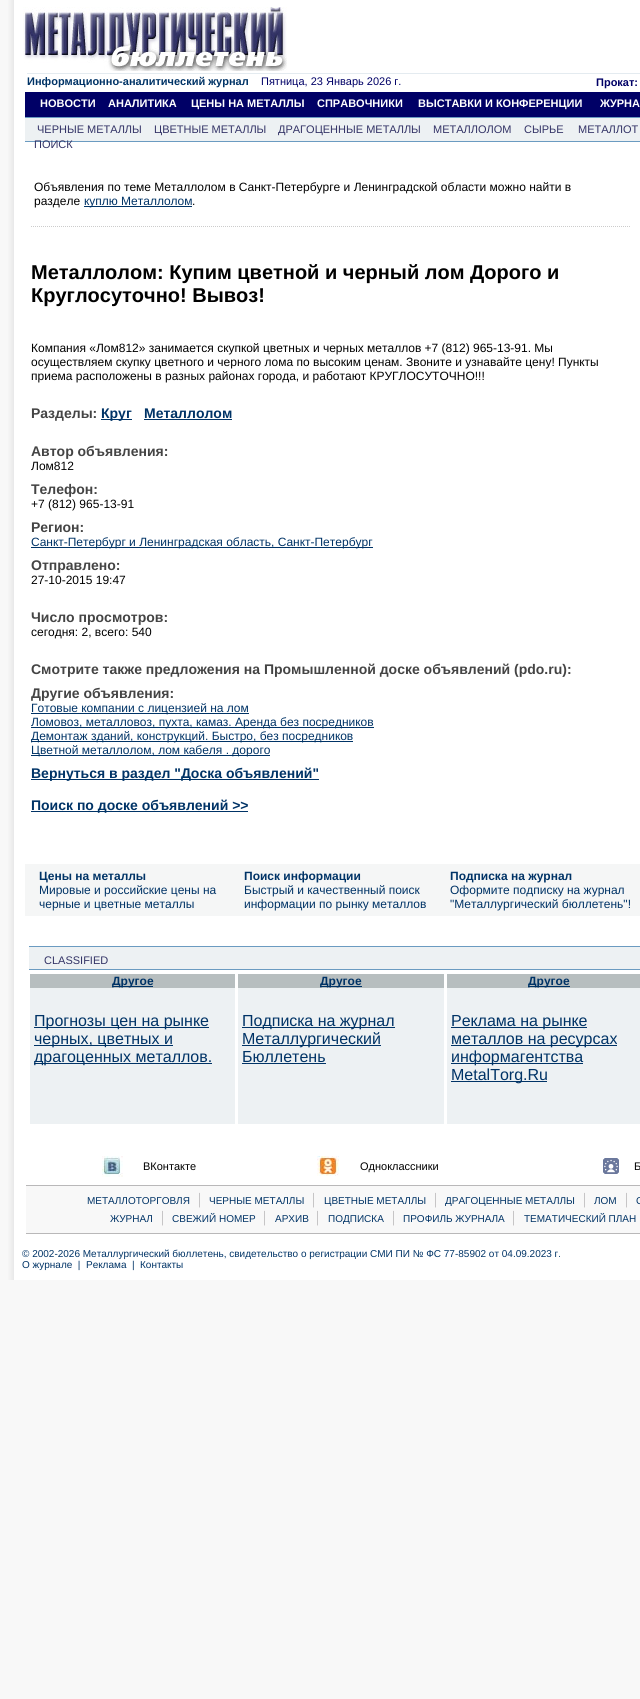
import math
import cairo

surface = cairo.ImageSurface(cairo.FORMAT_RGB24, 640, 1699)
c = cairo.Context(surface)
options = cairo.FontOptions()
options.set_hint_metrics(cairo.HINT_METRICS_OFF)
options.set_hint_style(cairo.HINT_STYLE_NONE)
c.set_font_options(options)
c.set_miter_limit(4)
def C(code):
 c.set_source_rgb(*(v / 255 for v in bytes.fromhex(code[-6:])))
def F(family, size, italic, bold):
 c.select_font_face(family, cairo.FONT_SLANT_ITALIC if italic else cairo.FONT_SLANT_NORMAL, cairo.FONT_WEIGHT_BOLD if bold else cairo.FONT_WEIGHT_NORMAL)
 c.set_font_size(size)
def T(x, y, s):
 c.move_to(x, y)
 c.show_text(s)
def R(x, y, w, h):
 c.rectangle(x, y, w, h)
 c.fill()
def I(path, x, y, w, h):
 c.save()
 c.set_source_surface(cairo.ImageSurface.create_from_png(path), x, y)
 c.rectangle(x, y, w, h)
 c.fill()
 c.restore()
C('f8f8f8')
c.paint()
C('ffffff')
R(14,0,626,1280)
I('1.png',8,0,6,1280)
I('2.png',23,7,264,64)
C('e4ebf0')
R(27,73,613,1)
F('Liberation Sans',11,0,1)
C('003366')
T(27,85,'Информационно-аналитический журнал')
F('Liberation Sans',11,0,0)
C('000066')
T(261,85,'Пятница, 23 Январь 2026 г.')
F('Liberation Sans',11,0,1)
T(596,86,'Прокат:')
R(25,92,615,25)
C('ffffff')
T(40,107,'НОВОСТИ')
T(108,107,'АНАЛИТИКА')
T(191,107,'ЦЕНЫ НА МЕТАЛЛЫ')
T(317,107,'СПРАВОЧНИКИ')
T(418,107,'ВЫСТАВКИ И КОНФЕРЕНЦИИ')
T(600,107,'ЖУРНА')
C('edf1f3')
R(25,118,615,23)
C('6b9bc1')
R(25,117,615,1)
R(25,141,615,1)
F('Liberation Sans',11,0,0)
C('333366')
T(37,133,'ЧЕРНЫЕ МЕТАЛЛЫ')
T(154,133,'ЦВЕТНЫЕ МЕТАЛЛЫ')
T(278,133,'ДРАГОЦЕННЫЕ МЕТАЛЛЫ')
T(433,133,'МЕТАЛЛОЛОМ')
T(524,133,'СЫРЬЕ')
T(578,133,'МЕТАЛЛОТ')
T(34,148,'ПОИСК')
F('Liberation Sans',12,0,0)
C('000000')
T(34,191,'Объявления по теме Металлолом в Санкт-Петербурге и Ленинградской области можно найти в')
T(34,205,'разделе')
C('003366')
R(84,206,108,1)
T(84,205,'куплю Металлолом')
C('000000')
T(192,205,'.')
I('3.png',31,226,599,1)
F('Liberation Sans',20,0,1)
T(31,279,'Металлолом: Купим цветной и черный лом Дорого и')
T(31,302,'Круглосуточно! Вывоз!')
F('Liberation Sans',12,0,0)
T(31,352,'Компания «Лом812» занимается скупкой цветных и черных металлов +7 (812) 965-13-91. Мы')
T(31,366,'осуществляем скупку цветного и черного лома по высоким ценам. Звоните и узнавайте цену! Пункты')
T(31,380,'приема расположены в разных районах города, и работают КРУГЛОСУТОЧНО!!!')
F('Liberation Sans',14,0,1)
C('444444')
T(31,418,'Разделы:')
C('003366')
R(101,419,31,1)
T(101,418,'Круг')
T(144,418,'Металлолом')
R(144,419,88,1)
C('444444')
T(31,456,'Автор объявления:')
F('Liberation Sans',12,0,0)
C('000000')
T(31,470,'Лом812')
F('Liberation Sans',14,0,1)
C('444444')
T(31,494,'Телефон:')
F('Liberation Sans',12,0,0)
C('000000')
T(31,508,'+7 (812) 965-13-91')
F('Liberation Sans',14,0,1)
C('444444')
T(31,532,'Регион:')
C('003366')
R(31,547,342,1)
F('Liberation Sans',12,0,0)
T(31,546,'Санкт-Петербург и Ленинградская область, Санкт-Петербург')
F('Liberation Sans',14,0,1)
C('444444')
T(31,570,'Отправлено:')
F('Liberation Sans',12,0,0)
C('000000')
T(31,584,'27-10-2015 19:47')
F('Liberation Sans',14,0,1)
C('444444')
T(31,622,'Число просмотров:')
F('Liberation Sans',12,0,0)
C('000000')
T(31,636,'сегодня: 2, всего: 540')
F('Liberation Sans',14,0,1)
C('444444')
T(31,674,'Смотрите также предложения на Промышленной доске объявлений (pdo.ru):')
T(31,698,'Другие объявления:')
C('003366')
R(31,713,218,1)
F('Liberation Sans',12,0,0)
T(31,712,'Готовые компании с лицензией на лом')
R(31,727,343,1)
T(31,726,'Ломовоз, металловоз, пухта, камаз. Аренда без посредников')
R(31,741,322,1)
T(31,740,'Демонтаж зданий, конструкций. Быстро, без посредников')
R(31,755,239,1)
T(31,754,'Цветной металлолом, лом кабеля . дорого')
R(31,779,288,1)
F('Liberation Sans',14,0,1)
T(31,778,'Вернуться в раздел "Доска объявлений"')
R(31,811,217,1)
T(31,810,'Поиск по доске объявлений >>')
C('f5f6f6')
R(25,864,615,52)
F('Liberation Sans',12,0,1)
C('003366')
T(39,880,'Цены на металлы')
F('Liberation Sans',12,0,0)
T(39,894,'Мировые и российские цены на')
T(39,908,'черные и цветные металлы')
F('Liberation Sans',12,0,1)
T(244,880,'Поиск информации')
F('Liberation Sans',12,0,0)
T(244,894,'Быстрый и качественный поиск')
T(244,908,'информации по рынку металлов')
F('Liberation Sans',12,0,1)
T(450,880,'Подписка на журнал')
F('Liberation Sans',12,0,0)
T(450,894,'Оформите подписку на журнал')
T(450,908,'"Металлургический бюллетень"!')
C('edf1f3')
R(29,947,611,22)
C('6b9bc1')
R(29,946,611,1)
R(29,969,611,1)
F('Liberation Sans',11,0,0)
C('333366')
T(44,964,'CLASSIFIED')
C('edf1f3')
R(30,988,205,136)
C('b7bebf')
R(30,974,205,14)
C('003366')
R(112,986,41,1)
F('Liberation Sans',12,0,1)
T(112,985,'Другое')
R(34,1027,175,1)
F('Liberation Sans',16,0,0)
T(34,1026,'Прогнозы цен на рынке')
R(34,1045,139,1)
T(34,1044,'черных, цветных и')
R(34,1063,178,1)
T(34,1062,'драгоценных металлов.')
C('edf1f3')
R(238,988,206,136)
C('b7bebf')
R(238,974,206,14)
C('003366')
R(320,986,42,1)
F('Liberation Sans',12,0,1)
T(320,985,'Другое')
R(242,1027,153,1)
F('Liberation Sans',16,0,0)
T(242,1026,'Подписка на журнал')
R(242,1045,139,1)
T(242,1044,'Металлургический')
T(242,1062,'Бюллетень')
R(242,1063,84,1)
C('edf1f3')
R(447,988,193,136)
C('b7bebf')
R(447,974,193,14)
C('003366')
R(528,986,42,1)
F('Liberation Sans',12,0,1)
T(528,985,'Другое')
R(451,1027,136,1)
F('Liberation Sans',16,0,0)
T(451,1026,'Реклама на рынке')
R(451,1045,166,1)
T(451,1044,'металлов на ресурсах')
R(451,1063,132,1)
T(451,1062,'информагентства')
R(451,1081,96,1)
T(451,1080,'MetalTorg.Ru')
I('4.png',102,1156,21,21)
F('Liberation Sans',11,0,0)
C('000000')
T(143,1170,'ВКонтакте')
I('5.png',317,1156,22,20)
T(360,1170,'Одноклассники')
I('6.png',603,1158,16,16)
T(634,1170,'Б')
C('f8f8f8')
R(26,1186,614,47)
C('b9b8b9')
R(26,1185,614,1)
R(26,1233,614,1)
F('Liberation Sans',10,0,0)
C('003366')
T(87,1204,'МЕТАЛЛОТОРГОВЛЯ')
F('Liberation Serif',16,0,0)
C('b9b8b9')
T(198,1204,'|')
F('Liberation Sans',10,0,0)
C('003366')
T(209,1204,'ЧЕРНЫЕ МЕТАЛЛЫ')
F('Liberation Serif',16,0,0)
C('b9b8b9')
T(312,1204,'|')
F('Liberation Sans',10,0,0)
C('003366')
T(324,1204,'ЦВЕТНЫЕ МЕТАЛЛЫ')
F('Liberation Serif',16,0,0)
C('b9b8b9')
T(434,1204,'|')
F('Liberation Sans',10,0,0)
C('003366')
T(445,1204,'ДРАГОЦЕННЫЕ МЕТАЛЛЫ')
F('Liberation Serif',16,0,0)
C('b9b8b9')
T(583,1204,'|')
F('Liberation Sans',10,0,0)
C('003366')
T(594,1204,'ЛОМ')
F('Liberation Serif',16,0,0)
C('b9b8b9')
T(625,1204,'|')
F('Liberation Sans',10,0,0)
C('003366')
T(636,1204,'C')
T(110,1222,'ЖУРНАЛ')
F('Liberation Serif',16,0,0)
C('b9b8b9')
T(161,1222,'|')
F('Liberation Sans',10,0,0)
C('003366')
T(172,1222,'СВЕЖИЙ НОМЕР')
F('Liberation Serif',16,0,0)
C('b9b8b9')
T(263,1222,'|')
F('Liberation Sans',10,0,0)
C('003366')
T(275,1222,'АРХИВ')
F('Liberation Serif',16,0,0)
C('b9b8b9')
T(316,1222,'|')
F('Liberation Sans',10,0,0)
C('003366')
T(328,1222,'ПОДПИСКА')
F('Liberation Serif',16,0,0)
C('b9b8b9')
T(392,1222,'|')
F('Liberation Sans',10,0,0)
C('003366')
T(403,1222,'ПРОФИЛЬ ЖУРНАЛА')
F('Liberation Serif',16,0,0)
C('b9b8b9')
T(512,1222,'|')
F('Liberation Sans',10,0,0)
C('003366')
T(524,1222,'ТЕМАТИЧЕСКИЙ ПЛАН')
T(22,1257,'© 2002-2026 Металлургический бюллетень, свидетельство о регистрации СМИ ПИ № ФС 77-85902 от 04.09.2023 г.')
T(22,1268,'О журнале  |')
T(86,1268,'Реклама  |')
T(140,1268,'Контакты')
surface.write_to_png('o.png')
